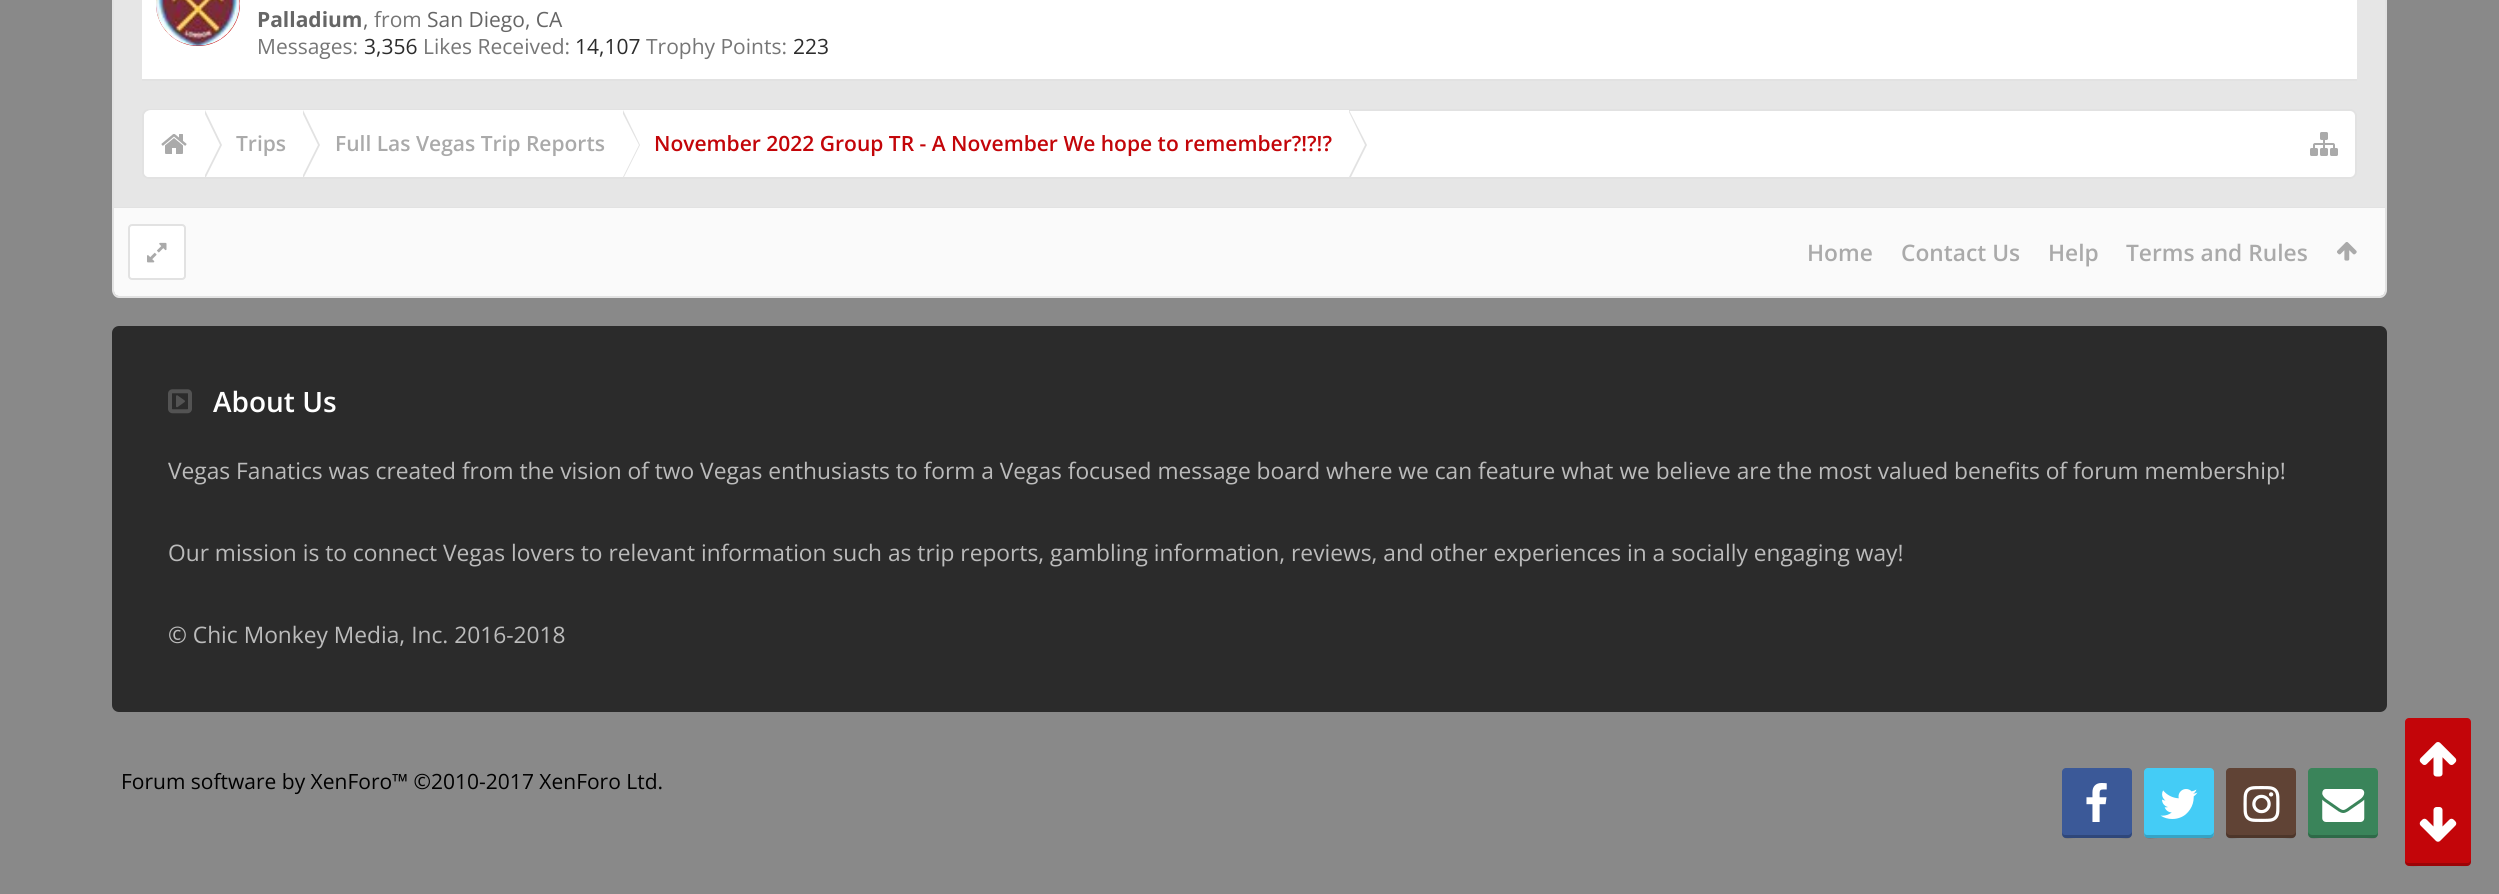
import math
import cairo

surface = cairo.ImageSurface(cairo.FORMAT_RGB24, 2499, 894)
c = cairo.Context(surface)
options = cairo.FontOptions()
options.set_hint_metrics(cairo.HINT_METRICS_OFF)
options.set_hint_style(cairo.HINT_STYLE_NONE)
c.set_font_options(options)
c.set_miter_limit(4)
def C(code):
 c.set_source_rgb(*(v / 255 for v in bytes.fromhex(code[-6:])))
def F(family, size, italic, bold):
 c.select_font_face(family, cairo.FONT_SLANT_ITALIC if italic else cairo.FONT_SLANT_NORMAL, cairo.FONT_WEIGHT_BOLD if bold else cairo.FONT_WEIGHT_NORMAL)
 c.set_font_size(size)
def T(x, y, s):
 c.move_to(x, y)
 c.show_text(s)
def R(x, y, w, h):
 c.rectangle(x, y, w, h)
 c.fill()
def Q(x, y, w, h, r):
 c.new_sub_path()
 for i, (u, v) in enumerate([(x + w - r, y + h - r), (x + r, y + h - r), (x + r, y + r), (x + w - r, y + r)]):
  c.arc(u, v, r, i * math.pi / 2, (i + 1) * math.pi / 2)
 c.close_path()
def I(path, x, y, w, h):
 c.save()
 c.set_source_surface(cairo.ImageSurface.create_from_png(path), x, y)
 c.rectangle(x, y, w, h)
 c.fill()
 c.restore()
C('898989')
c.paint()
C('e6e6e6')
R(114,0,2271,207)
C('e2e2e2')
R(2385,0,2,208)
R(112,207,2275,1)
R(112,0,2,208)
C('ffffff')
R(142,0,2215,79)
C('e2e2e2')
R(142,79,2215,2)
C('c30509')
c.arc(198,4,42,0,2 * math.pi)
c.fill()
I('1.png',156,0,84,46)
F('Open Sans',21,0,1)
C('666666')
T(257,27,'Palladium')
F('Open Sans',21,0,0)
T(363,27,',')
C('767676')
T(374,27,'from')
C('666666')
T(427,27,'San Diego, CA')
C('767676')
T(257,54,'Messages:')
C('2c2c2c')
T(364,54,'3,356')
C('767676')
T(423,54,'Likes Received:')
C('2c2c2c')
T(575,54,'14,107')
C('767676')
T(646,54,'Trophy Points:')
C('2c2c2c')
T(793,54,'223')
C('ffffff')
Q(143,110,2213,68,6)
c.fill_preserve()
C('e2e2e2')
c.stroke()
c.save()
Q(144,110,2212,67,5)
c.clip()
C('ffffff')
c.new_path()
c.move_to(151,110)
c.line_to(205,110)
c.line_to(205,179)
c.line_to(151,179)
c.curve_to(147,179,144,176,144,172)
c.line_to(144,117)
c.curve_to(144,113,147,110,151,110)
c.close_path()
c.fill()
c.restore()
I('2.png',161,134,26,20)
C('ffffff')
R(205,110,1144,1)
C('e2e2e2')
c.new_path()
c.move_to(206,177)
c.line_to(205,177)
c.line_to(205,110)
c.line_to(222,145)
c.close_path()
c.fill()
C('ffffff')
c.new_path()
c.move_to(204,177)
c.line_to(203,177)
c.line_to(203,110)
c.line_to(220,145)
c.close_path()
c.fill()
F('Open Sans SemiBold',21,0,0)
C('aaaaaa')
T(236,151,'Trips')
C('e2e2e2')
c.new_path()
c.move_to(304,177)
c.line_to(303,177)
c.line_to(303,110)
c.line_to(320,145)
c.close_path()
c.fill()
C('ffffff')
c.new_path()
c.move_to(302,177)
c.line_to(301,177)
c.line_to(301,110)
c.line_to(318,145)
c.close_path()
c.fill()
C('aaaaaa')
T(335,151,'Full Las Vegas Trip Reports')
C('e2e2e2')
c.new_path()
c.move_to(624,177)
c.line_to(623,177)
c.line_to(623,110)
c.line_to(640,145)
c.close_path()
c.fill()
C('ffffff')
c.new_path()
c.move_to(623,177)
c.line_to(621,177)
c.line_to(621,110)
c.line_to(639,145)
c.close_path()
c.fill()
C('c30509')
T(654,151,'November 2022 Group TR - A November We hope to remember?!?!?')
C('e2e2e2')
c.new_path()
c.move_to(1351,177)
c.line_to(1349,177)
c.line_to(1349,110)
c.line_to(1367,145)
c.close_path()
c.fill()
C('ffffff')
c.new_path()
c.move_to(1349,177)
c.line_to(1348,177)
c.line_to(1348,110)
c.line_to(1365,145)
c.close_path()
c.fill()
I('3.png',2310,132,28,24)
C('fafafa')
c.new_path()
c.move_to(114,208)
c.line_to(2385,208)
c.line_to(2385,291)
c.curve_to(2385,294,2383,296,2380,296)
c.line_to(119,296)
c.curve_to(116,296,114,294,114,291)
c.close_path()
c.fill()
C('e2e2e2')
c.set_fill_rule(cairo.FILL_RULE_EVEN_ODD)
c.new_path()
c.move_to(112,208)
c.line_to(2387,208)
c.line_to(2387,290)
c.curve_to(2387,294,2384,298,2380,298)
c.line_to(119,298)
c.curve_to(115,298,112,294,112,290)
c.close_path()
c.move_to(114,208)
c.line_to(2385,208)
c.line_to(2385,290)
c.curve_to(2385,293,2383,296,2380,296)
c.line_to(119,296)
c.curve_to(116,296,114,293,114,290)
c.close_path()
c.fill()
C('ffffff')
Q(129,225,56,54,3)
c.fill_preserve()
C('e2e2e2')
c.stroke()
I('4.png',147,242,20,21)
F('Open Sans SemiBold',22.75,0,0)
C('aaaaaa')
T(1807,261,'Home')
T(1901,261,'Contact Us')
T(2048,261,'Help')
T(2126,261,'Terms and Rules')
I('5.png',2337,242,20,19)
C('2b2b2b')
Q(112,326,2275,386,7)
c.fill()
I('6.png',168,389,24,25)
F('Open Sans SemiBold',28,0,0)
C('ffffff')
T(213,412,'About Us')
F('Open Sans',22.75,0,0)
C('bbbbbb')
T(168,479,'Vegas Fanatics was created from the vision of two Vegas enthusiasts to form a Vegas focused message board where we can feature what we believe are the most valued benefits of forum membership!')
T(168,561,'Our mission is to connect Vegas lovers to relevant information such as trip reports, gambling information, reviews, and other experiences in a socially engaging way!')
T(168,643,'© Chic Monkey Media, Inc. 2016-2018')
F('Open Sans',21,0,0)
C('000000')
T(121,789,'Forum software by XenForo™ ©2010-2017 XenForo Ltd.')
C('3b5998')
Q(2062,768,70,70,4)
c.fill()
c.set_source_rgba(0,0,0,0.2)
c.set_fill_rule(cairo.FILL_RULE_WINDING)
c.new_path()
c.move_to(2062,831)
c.curve_to(2062,841,2067,838,2076,838)
c.line_to(2118,838)
c.curve_to(2127,838,2132,841,2132,831)
c.curve_to(2132,833,2130,835,2128,835)
c.line_to(2065,835)
c.curve_to(2063,835,2062,833,2062,831)
c.close_path()
c.fill()
I('7.png',2086,783,21,39)
C('44ccf6')
Q(2144,768,70,70,4)
c.fill()
c.set_source_rgba(0,0,0,0.2)
c.new_path()
c.move_to(2144,831)
c.curve_to(2144,841,2149,838,2158,838)
c.line_to(2200,838)
c.curve_to(2209,838,2214,841,2214,831)
c.curve_to(2214,833,2212,835,2210,835)
c.line_to(2147,835)
c.curve_to(2145,835,2144,833,2144,831)
c.close_path()
c.fill()
I('8.png',2160,789,38,30)
C('604335')
Q(2226,768,70,70,4)
c.fill()
c.set_source_rgba(0,0,0,0.2)
c.new_path()
c.move_to(2226,831)
c.curve_to(2226,841,2231,838,2240,838)
c.line_to(2282,838)
c.curve_to(2291,838,2296,841,2296,831)
c.curve_to(2296,833,2294,835,2292,835)
c.line_to(2230,835)
c.curve_to(2228,835,2226,833,2226,831)
c.close_path()
c.fill()
I('9.png',2243,786,37,36)
C('3a845a')
Q(2308,768,70,70,4)
c.fill()
c.set_source_rgba(0,0,0,0.2)
c.new_path()
c.move_to(2308,831)
c.curve_to(2308,841,2313,838,2322,838)
c.line_to(2364,838)
c.curve_to(2373,838,2378,841,2378,831)
c.curve_to(2378,833,2377,835,2375,835)
c.line_to(2312,835)
c.curve_to(2310,835,2308,833,2308,831)
c.close_path()
c.fill()
I('10.png',2322,789,43,33)
C('c30509')
Q(2405,718,66,148,4)
c.fill()
c.set_source_rgba(0,0,0,0.2)
c.new_path()
c.move_to(2405,861)
c.curve_to(2405,868,2415,866,2419,866)
c.line_to(2457,866)
c.curve_to(2467,866,2471,868,2471,859)
c.curve_to(2471,861,2469,863,2468,863)
c.line_to(2408,863)
c.curve_to(2407,863,2406,862,2405,861)
c.close_path()
c.fill()
I('11.png',2419,742,38,35)
I('12.png',2419,807,38,35)
surface.write_to_png('o.png')
